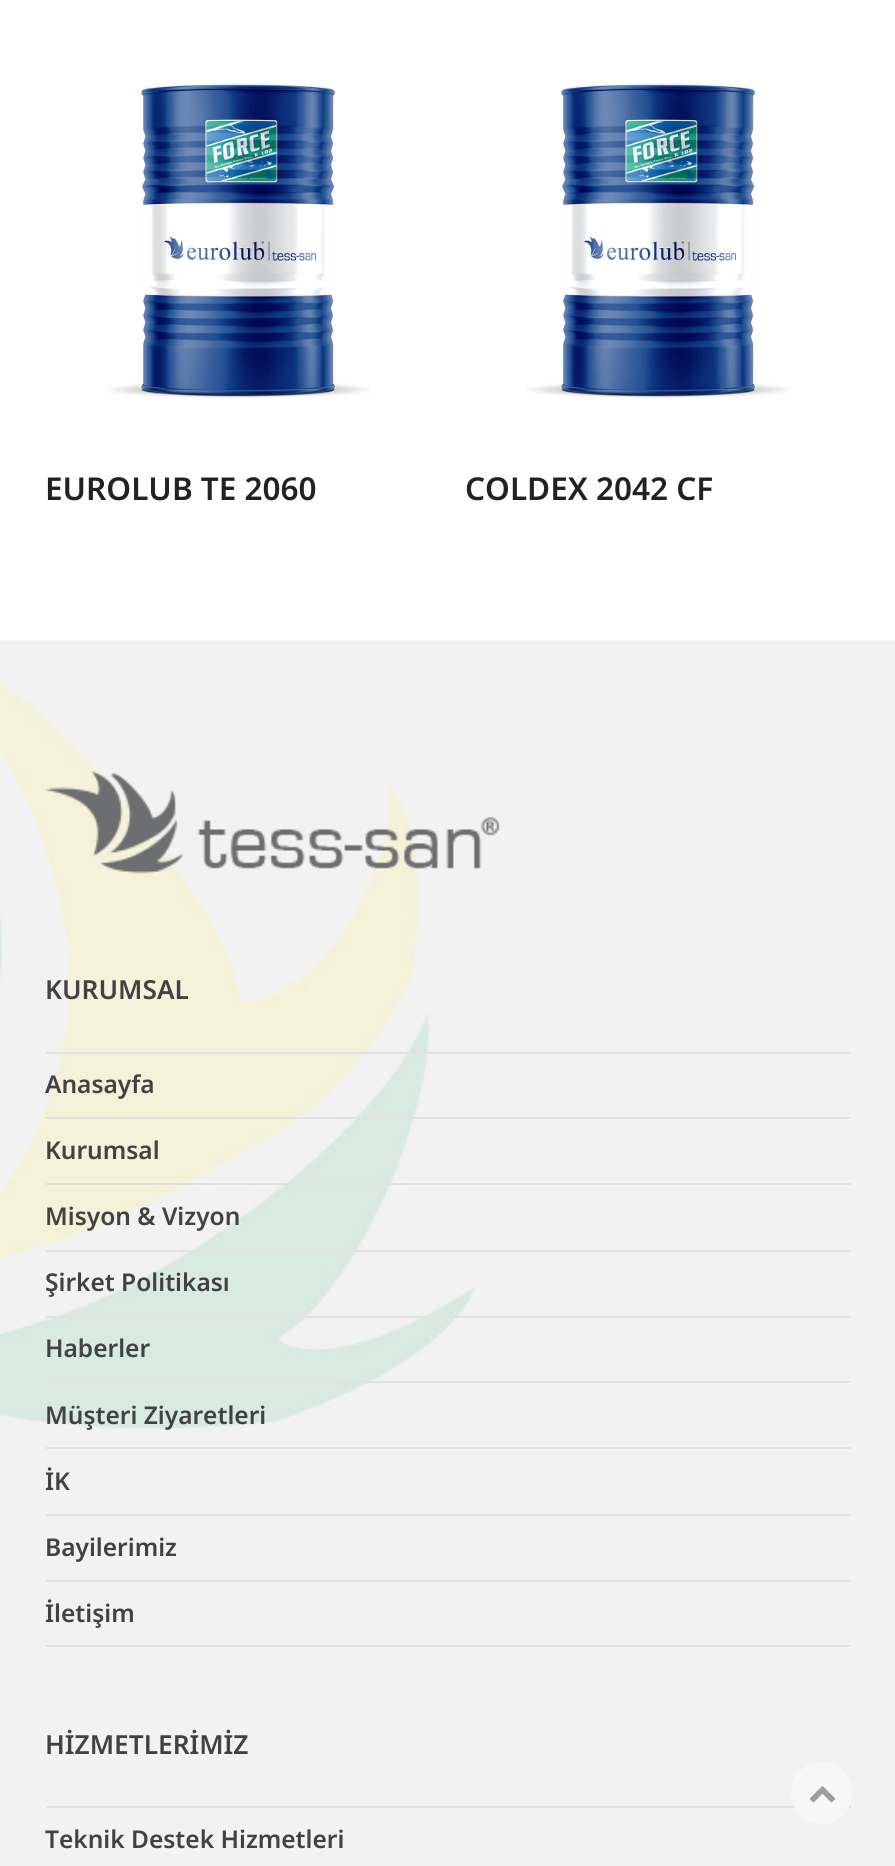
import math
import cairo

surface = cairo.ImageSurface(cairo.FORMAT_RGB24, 895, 1866)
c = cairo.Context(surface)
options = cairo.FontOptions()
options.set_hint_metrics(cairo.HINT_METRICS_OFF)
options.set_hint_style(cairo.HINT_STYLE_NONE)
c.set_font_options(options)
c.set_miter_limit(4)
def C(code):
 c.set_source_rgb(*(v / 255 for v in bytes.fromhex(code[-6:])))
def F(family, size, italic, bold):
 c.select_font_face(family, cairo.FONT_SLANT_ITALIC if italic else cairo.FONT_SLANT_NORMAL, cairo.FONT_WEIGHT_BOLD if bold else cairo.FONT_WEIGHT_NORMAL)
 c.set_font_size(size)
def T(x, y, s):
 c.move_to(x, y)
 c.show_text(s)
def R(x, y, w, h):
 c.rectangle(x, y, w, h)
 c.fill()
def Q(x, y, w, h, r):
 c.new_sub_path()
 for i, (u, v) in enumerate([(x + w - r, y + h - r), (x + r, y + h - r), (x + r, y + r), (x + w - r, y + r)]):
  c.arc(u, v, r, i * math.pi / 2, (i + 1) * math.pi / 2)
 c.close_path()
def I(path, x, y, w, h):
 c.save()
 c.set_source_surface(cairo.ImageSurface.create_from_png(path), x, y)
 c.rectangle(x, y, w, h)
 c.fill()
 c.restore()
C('ffffff')
c.paint()
I('1.png',107,84,263,315)
F('Noto Sans SemiBold',31.5,0,0)
C('222222')
T(45,500,'EUROLUB TE 2060')
I('1.png',527,84,263,315)
T(465,500,'COLDEX 2042 CF')
C('f2f2f2')
R(0,1429,895,437)
I('2.png',0,640,895,789)
I('3.png',45,771,455,103)
F('Noto Sans SemiBold',26.25,0,0)
C('424242')
T(45,999,'KURUMSAL')
C('e2e2e2')
R(46,1052,805,2)
R(46,1117,805,2)
F('Noto Sans SemiBold',24.5,0,0)
C('424242')
T(45,1093,'Anasayfa')
C('e2e2e2')
R(46,1183,805,2)
C('424242')
T(45,1159,'Kurumsal')
C('e2e2e2')
R(46,1250,805,2)
C('424242')
T(45,1225,'Misyon & Vizyon')
C('e2e2e2')
R(46,1316,805,2)
C('424242')
T(45,1291,'Şirket Politikası')
C('e2e2e2')
R(46,1381,805,2)
C('424242')
T(45,1357,'Haberler')
C('e2e2e2')
R(46,1447,805,2)
C('424242')
T(45,1424,'Müşteri Ziyaretleri')
C('e2e2e2')
R(46,1514,805,2)
C('424242')
T(45,1490,'İK')
C('e2e2e2')
R(46,1580,805,2)
C('424242')
T(45,1556,'Bayilerimiz')
C('e2e2e2')
R(46,1645,805,2)
C('424242')
T(45,1622,'İletişim')
F('Noto Sans SemiBold',26.25,0,0)
T(45,1754,'HİZMETLERİMİZ')
C('e2e2e2')
R(46,1806,805,2)
F('Noto Sans SemiBold',24.5,0,0)
C('424242')
T(45,1848,'Teknik Destek Hizmetleri')
C('f7f7f7')
Q(791,1762,61,62,30.5)
c.fill()
I('4.png',809,1786,27,17)
surface.write_to_png('o.png')
